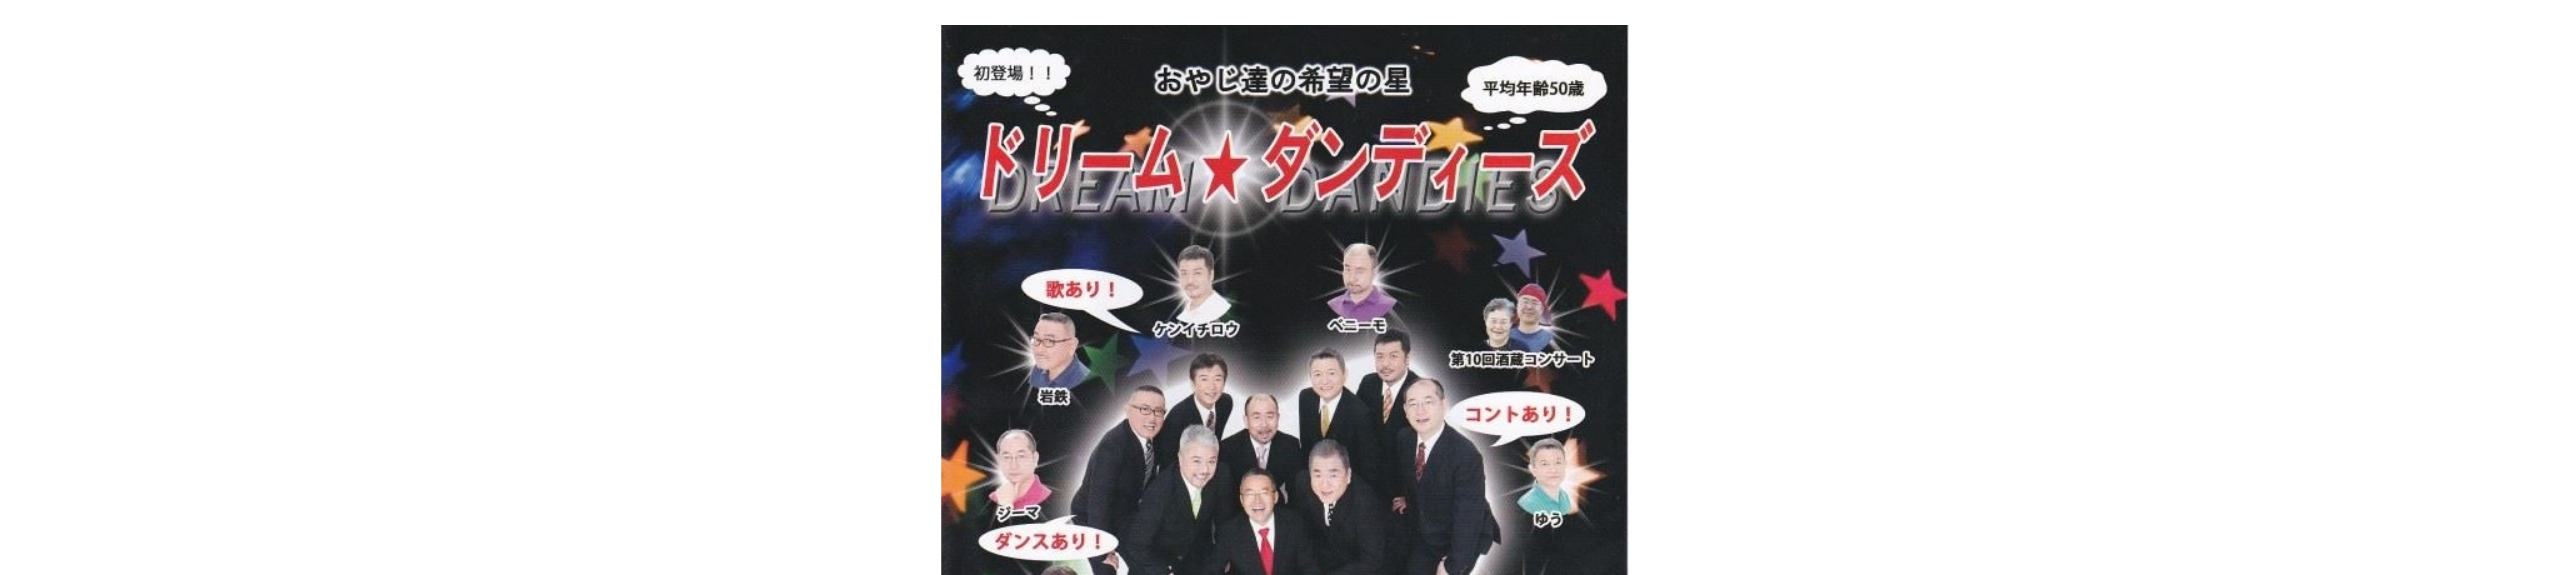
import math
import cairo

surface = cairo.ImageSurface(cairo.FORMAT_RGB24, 2569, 575)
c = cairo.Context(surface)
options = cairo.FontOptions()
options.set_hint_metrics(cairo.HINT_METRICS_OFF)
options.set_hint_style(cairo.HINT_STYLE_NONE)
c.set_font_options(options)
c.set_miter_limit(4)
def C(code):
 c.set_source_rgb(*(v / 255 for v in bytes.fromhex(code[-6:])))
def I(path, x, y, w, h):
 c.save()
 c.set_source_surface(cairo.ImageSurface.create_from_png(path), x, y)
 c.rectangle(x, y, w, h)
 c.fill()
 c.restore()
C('ffffff')
c.paint()
I('1.png',941,25,688,550)
surface.write_to_png('o.png')
